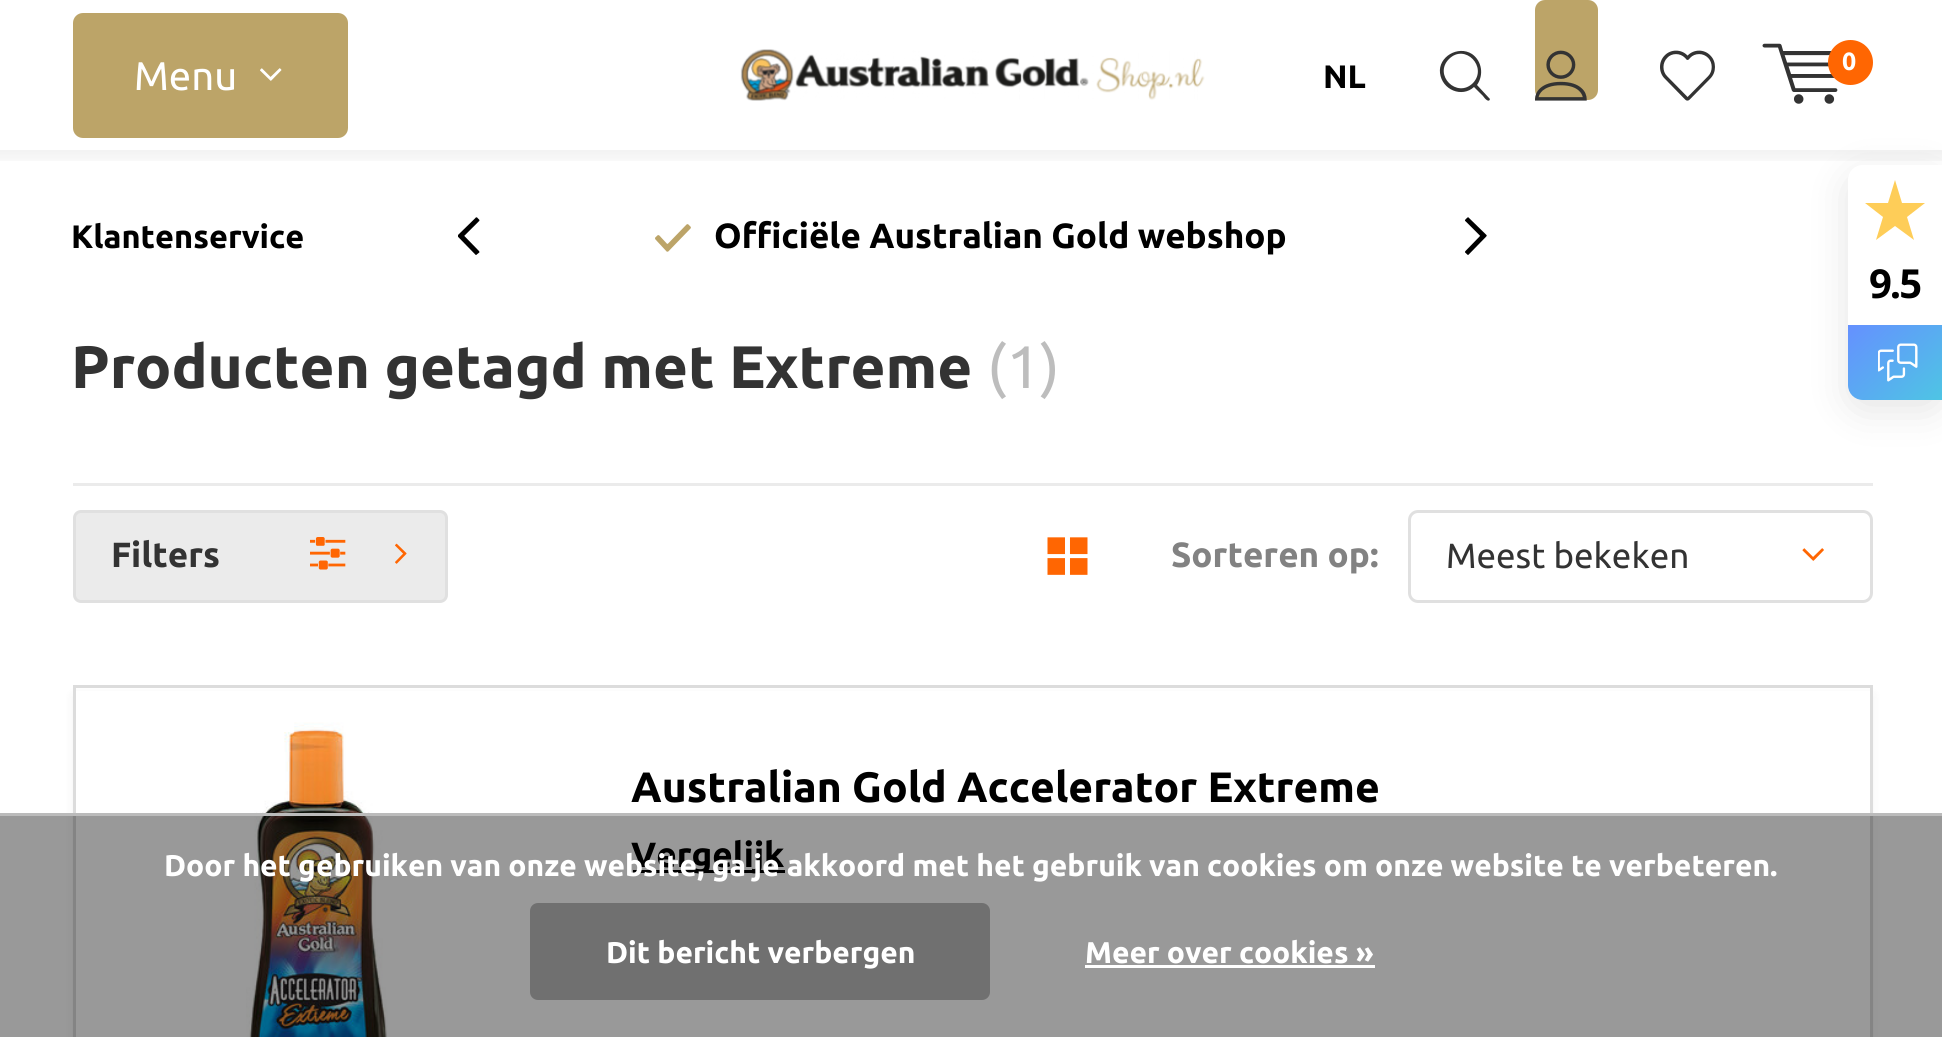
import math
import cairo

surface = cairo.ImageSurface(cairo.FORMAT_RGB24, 1942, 1037)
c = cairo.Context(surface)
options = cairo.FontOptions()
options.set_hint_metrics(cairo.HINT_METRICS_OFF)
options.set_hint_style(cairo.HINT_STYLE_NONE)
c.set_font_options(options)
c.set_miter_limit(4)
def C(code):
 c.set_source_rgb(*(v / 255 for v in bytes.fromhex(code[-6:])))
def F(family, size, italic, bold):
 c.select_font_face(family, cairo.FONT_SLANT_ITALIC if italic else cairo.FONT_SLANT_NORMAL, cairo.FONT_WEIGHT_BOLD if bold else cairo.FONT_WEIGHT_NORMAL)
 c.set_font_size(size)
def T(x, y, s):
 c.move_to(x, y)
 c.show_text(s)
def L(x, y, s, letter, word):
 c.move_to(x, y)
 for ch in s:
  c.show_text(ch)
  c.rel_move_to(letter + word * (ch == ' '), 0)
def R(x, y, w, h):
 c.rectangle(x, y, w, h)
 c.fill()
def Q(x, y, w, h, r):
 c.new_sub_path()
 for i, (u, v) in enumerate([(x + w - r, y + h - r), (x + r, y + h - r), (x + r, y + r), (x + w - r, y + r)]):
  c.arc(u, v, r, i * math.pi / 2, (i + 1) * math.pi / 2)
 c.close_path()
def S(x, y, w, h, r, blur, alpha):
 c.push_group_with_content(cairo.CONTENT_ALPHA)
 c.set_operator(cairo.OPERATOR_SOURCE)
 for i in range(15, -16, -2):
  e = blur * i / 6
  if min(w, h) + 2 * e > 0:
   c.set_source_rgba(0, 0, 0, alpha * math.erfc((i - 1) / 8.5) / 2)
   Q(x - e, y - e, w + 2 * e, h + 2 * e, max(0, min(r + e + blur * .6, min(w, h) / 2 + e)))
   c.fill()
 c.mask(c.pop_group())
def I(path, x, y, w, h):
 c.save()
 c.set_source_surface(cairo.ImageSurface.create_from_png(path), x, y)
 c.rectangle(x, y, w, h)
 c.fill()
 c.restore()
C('ffffff')
c.paint()
c.save()
c.rectangle(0,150,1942,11)
c.clip()
C('000000')
S(-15,10,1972,150,0,5,.05)
c.restore()
I('1.png',740,49,465,52)
C('bca468')
Q(73,13,275,125,10)
c.fill()
F('Ubuntu',40,0,0)
C('ffffff')
T(134,90,'Menu')
I('2.png',260,68,22,13)
C('333333')
c.new_path()
c.move_to(1489,98)
c.line_to(1477,85)
c.curve_to(1484,75,1482,61,1472,54)
c.curve_to(1458,45,1438,57,1440,73)
c.curve_to(1442,90,1462,98,1474,87)
c.line_to(1483,96)
c.curve_to(1485,99,1489,103,1490,99)
c.close_path()
c.move_to(1473,83)
c.curve_to(1457,99,1433,75,1449,59)
c.curve_to(1465,43,1488,67,1473,83)
c.close_path()
c.fill()
C('bca468')
Q(1535,0,63,100,10)
c.fill()
I('3.png',1535,50,52,51)
I('4.png',1660,50,55,51)
I('5.png',1762,43,76,61)
C('ff6602')
c.arc(1850.5,62.5,22.5,0,2 * math.pi)
c.fill()
F('Ubuntu',25,0,1)
C('ffffff')
T(1842,70,'0')
F('Ubuntu',32.5,0,1)
C('000000')
T(1323,88,'NL')
T(71,248,'Klantenservice')
I('6.png',458,217,22,38)
I('7.png',1465,217,22,38)
I('8.png',655,224,36,28)
F('Ubuntu',35,0,1)
T(714,248,'Officiële Australian Gold webshop')
F('Ubuntu',60,0,1)
C('333333')
T(71,388,'Producten getagd met Extreme')
F('Ubuntu',60,0,0)
C('bdbdbd')
T(987,388,'(1)')
C('ebebeb')
R(73,483,1800,3)
Q(74.5,511.5,372,90,6.5)
c.fill_preserve()
C('e0e0e0')
c.set_line_width(3)
c.stroke()
F('Ubuntu',35,0,1)
C('333333')
T(111,567,'Filters')
I('9.png',310,537,36,33)
I('10.png',395,543,12,21)
I('11.png',1047,537,41,38)
C('828282')
T(1171,567,'Sorteren op:')
I('12.png',1802,548,22,13)
Q(1409.5,511.5,462,90,8.5)
C('e0e0e0')
c.stroke()
F('Ubuntu',35,0,0)
C('333333')
T(1446,568,'Meest bekeken')
C('000000')
S(73,695,1800,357,0,5,.05)
C('ffffff')
R(76,691,1794,346)
c.rectangle(74.5,686.5,1797,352)
C('dcdcdc')
c.stroke()
I('13.png',246,722,142,315)
F('Ubuntu',42.5,0,1)
C('000000')
T(631,802,'Australian Gold Accelerator Extreme')
R(633,870,152,3)
F('Ubuntu',35,0,1)
T(631,867,'Vergelijk')
C('1e1e1e')
S(1848,175,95,235,15,20,.12)
C('ffffff')
c.new_path()
c.move_to(1863,165)
c.line_to(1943,165)
c.line_to(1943,400)
c.line_to(1863,400)
c.curve_to(1854.5,400,1848,393.5,1848,385)
c.line_to(1848,180)
c.curve_to(1848,171.5,1854.5,165,1863,165)
c.close_path()
c.fill()
C('fecd58')
c.new_path()
c.move_to(1914,240)
c.line_to(1907,217)
c.line_to(1925,203)
c.line_to(1902,203)
c.line_to(1895,180)
c.line_to(1888,203)
c.line_to(1865,203)
c.line_to(1883,217)
c.line_to(1876,240)
c.line_to(1895,226)
c.close_path()
c.fill()
F('Open Sans',40,0,1)
C('000000')
L(1869,298,'9.5',-2,0)
gradient = cairo.LinearGradient(1855,318,1935,407)
gradient.add_color_stop_rgba(0,0.396,0.565,1,1)
gradient.add_color_stop_rgba(1,0.306,0.773,0.894,1)
c.set_source(gradient)
c.new_path()
c.move_to(1848,325)
c.line_to(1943,325)
c.line_to(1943,400)
c.line_to(1863,400)
c.curve_to(1854.5,400,1848,393.5,1848,385)
c.close_path()
c.fill()
I('14.png',1878,343,40,39)
c.set_source_rgba(0,0,0,0.4)
R(0,816,1942,221)
C('bbbbbb')
R(0,813,1942,3)
F('Ubuntu',30,0,1)
C('ffffff')
T(164,876,'Door het gebruiken van onze website, ga je akkoord met het gebruik van cookies om onze website te verbeteren.')
C('707070')
Q(530,903,460,97,8)
c.fill()
C('ffffff')
T(606,963,'Dit bericht verbergen')
T(1085,963,'Meer over cookies »')
R(1085,965,290,3)
surface.write_to_png('o.png')
